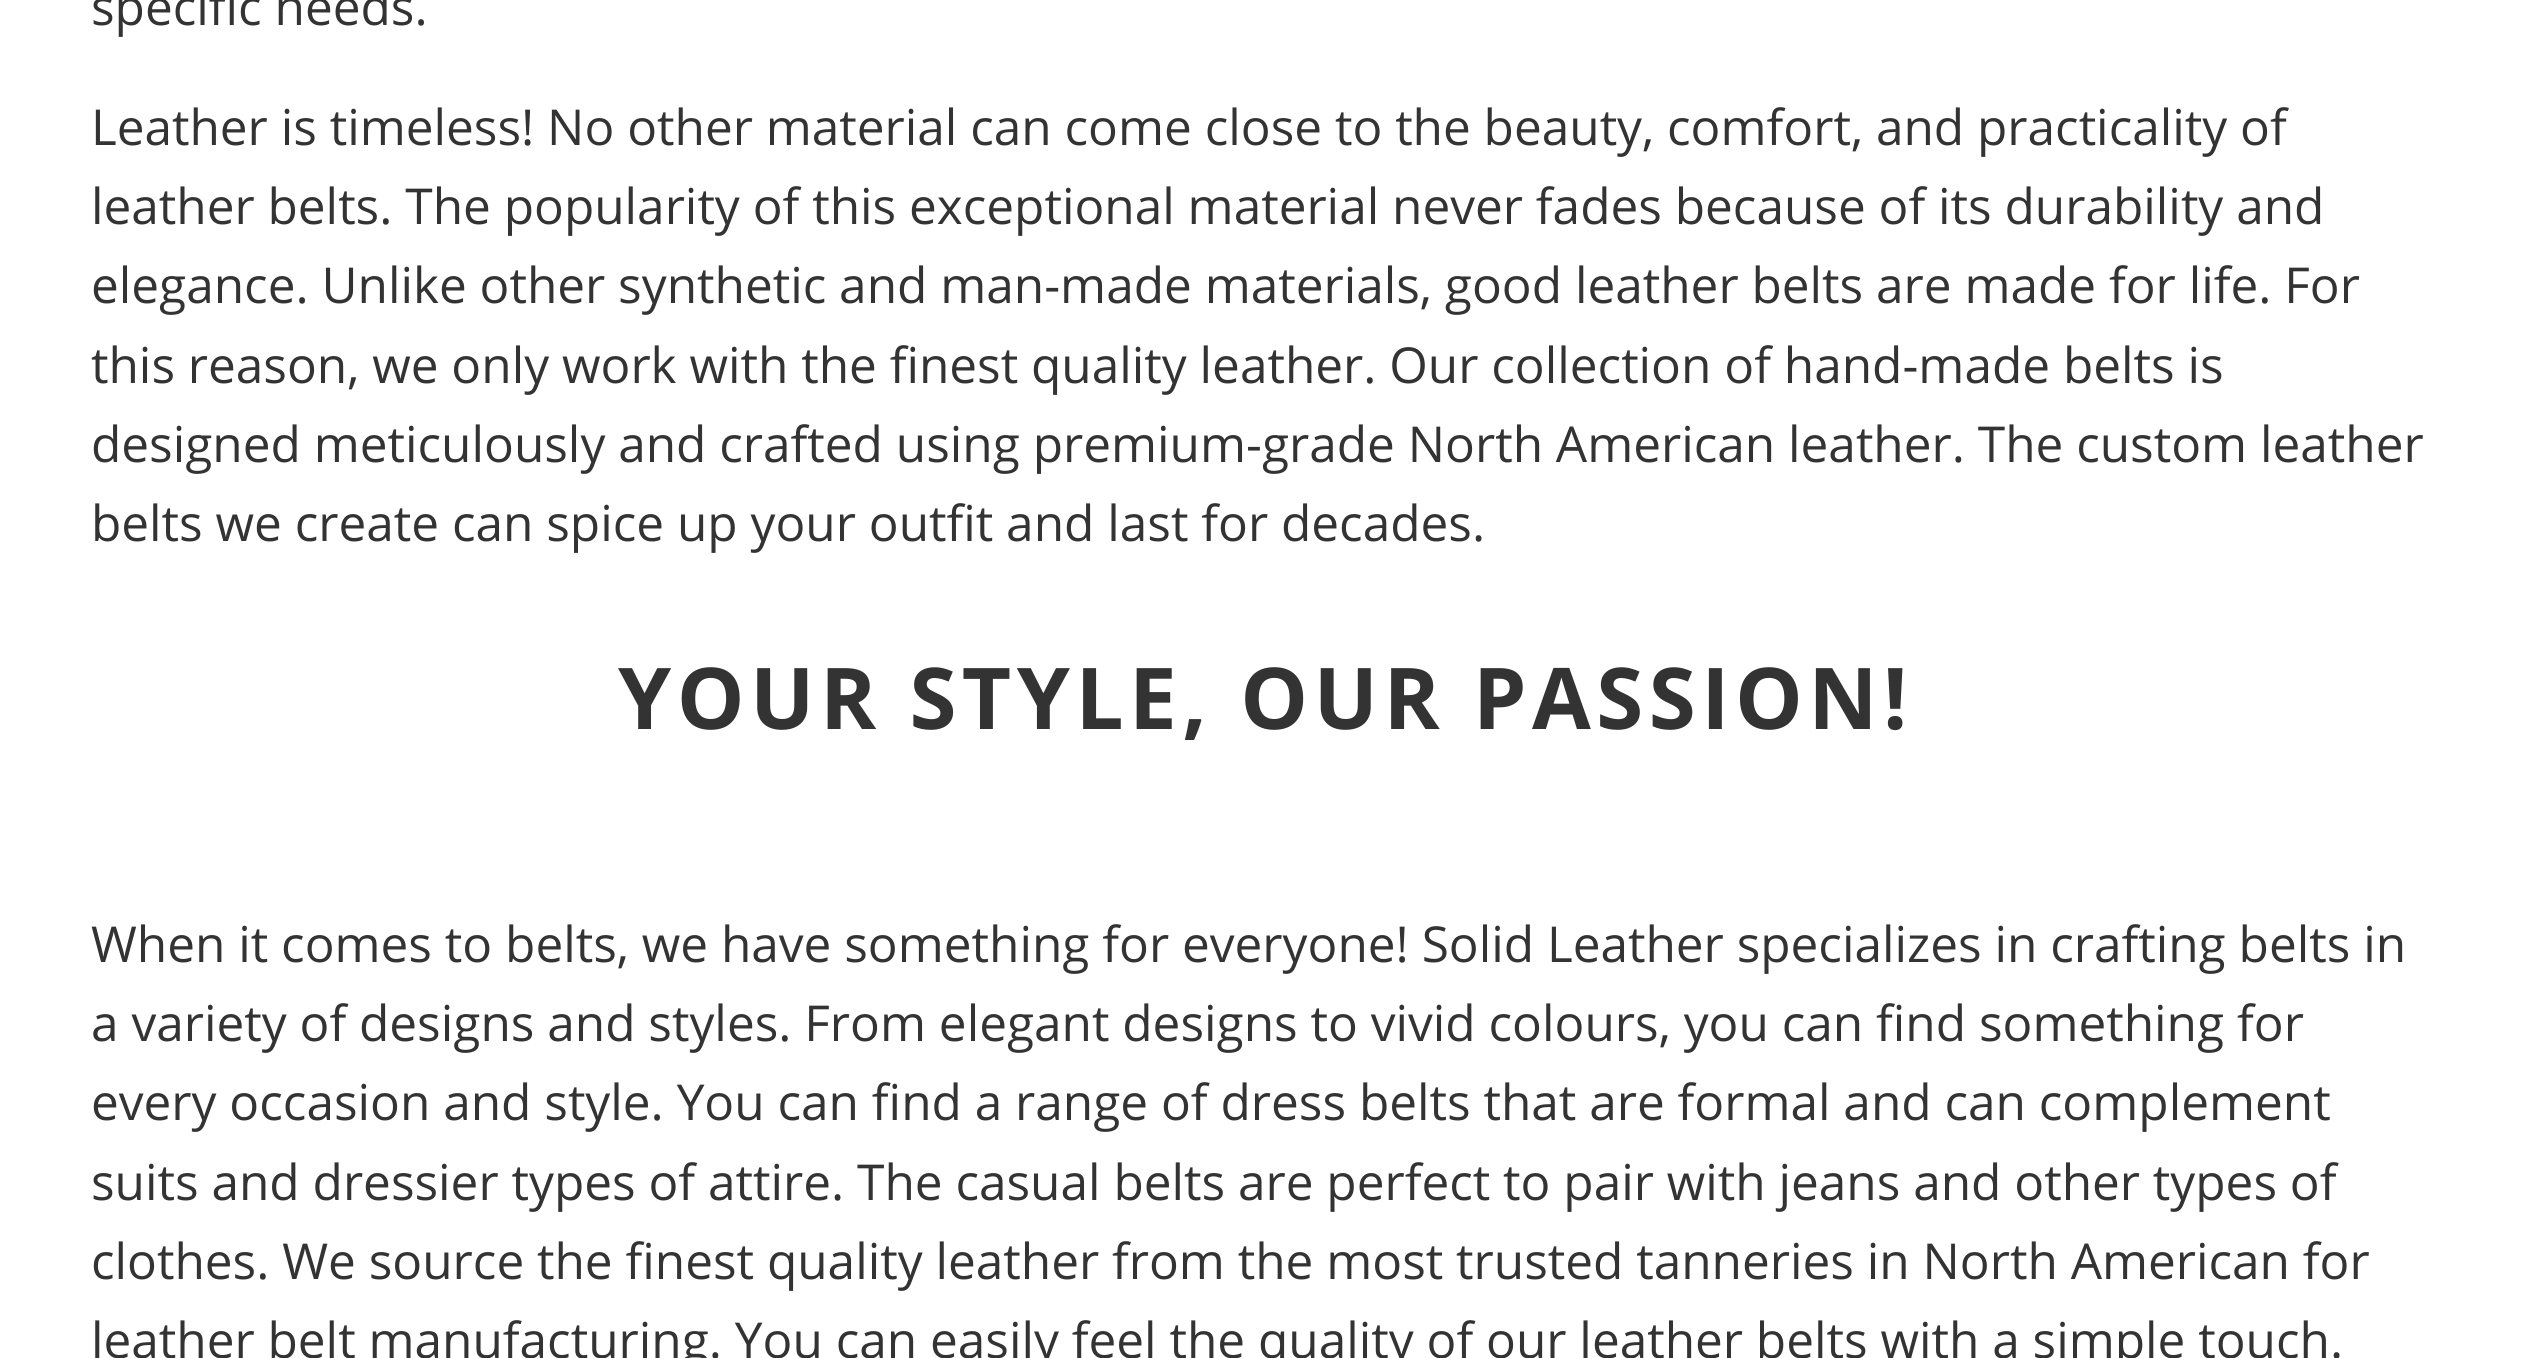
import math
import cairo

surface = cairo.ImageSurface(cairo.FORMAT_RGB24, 2529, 1358)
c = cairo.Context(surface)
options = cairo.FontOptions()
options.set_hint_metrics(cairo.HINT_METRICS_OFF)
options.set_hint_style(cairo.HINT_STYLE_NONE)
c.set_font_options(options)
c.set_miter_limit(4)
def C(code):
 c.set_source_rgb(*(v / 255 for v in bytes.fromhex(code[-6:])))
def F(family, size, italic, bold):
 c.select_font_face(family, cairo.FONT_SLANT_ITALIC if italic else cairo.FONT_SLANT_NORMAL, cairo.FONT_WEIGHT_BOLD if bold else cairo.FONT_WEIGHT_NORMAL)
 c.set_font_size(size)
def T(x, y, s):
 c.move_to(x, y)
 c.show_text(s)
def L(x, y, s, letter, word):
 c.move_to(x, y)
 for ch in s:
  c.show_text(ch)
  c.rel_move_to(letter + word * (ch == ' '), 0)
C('ffffff')
c.paint()
F('Open Sans',49.5,0,0)
C('333333')
T(91,25,'specific needs.')
T(91,145,'Leather is timeless! No other material can come close to the beauty, comfort, and practicality of')
T(91,224,'leather belts. The popularity of this exceptional material never fades because of its durability and')
T(91,303,'elegance. Unlike other synthetic and man-made materials, good leather belts are made for life. For')
T(91,383,'this reason, we only work with the finest quality leather. Our collection of hand-made belts is')
T(91,462,'designed meticulously and crafted using premium-grade North American leather. The custom leather')
T(91,541,'belts we create can spice up your outfit and last for decades.')
F('Open Sans',85.25,0,1)
L(618,729,'YOUR STYLE, OUR PASSION!',5.5,0)
F('Open Sans',49.5,0,0)
T(91,962,'When it comes to belts, we have something for everyone! Solid Leather specializes in crafting belts in')
T(91,1041,'a variety of designs and styles. From elegant designs to vivid colours, you can find something for')
T(91,1120,'every occasion and style. You can find a range of dress belts that are formal and can complement')
T(91,1200,'suits and dressier types of attire. The casual belts are perfect to pair with jeans and other types of')
T(91,1279,'clothes. We source the finest quality leather from the most trusted tanneries in North American for')
T(91,1358,'leather belt manufacturing. You can easily feel the quality of our leather belts with a simple touch.')
surface.write_to_png('o.png')
